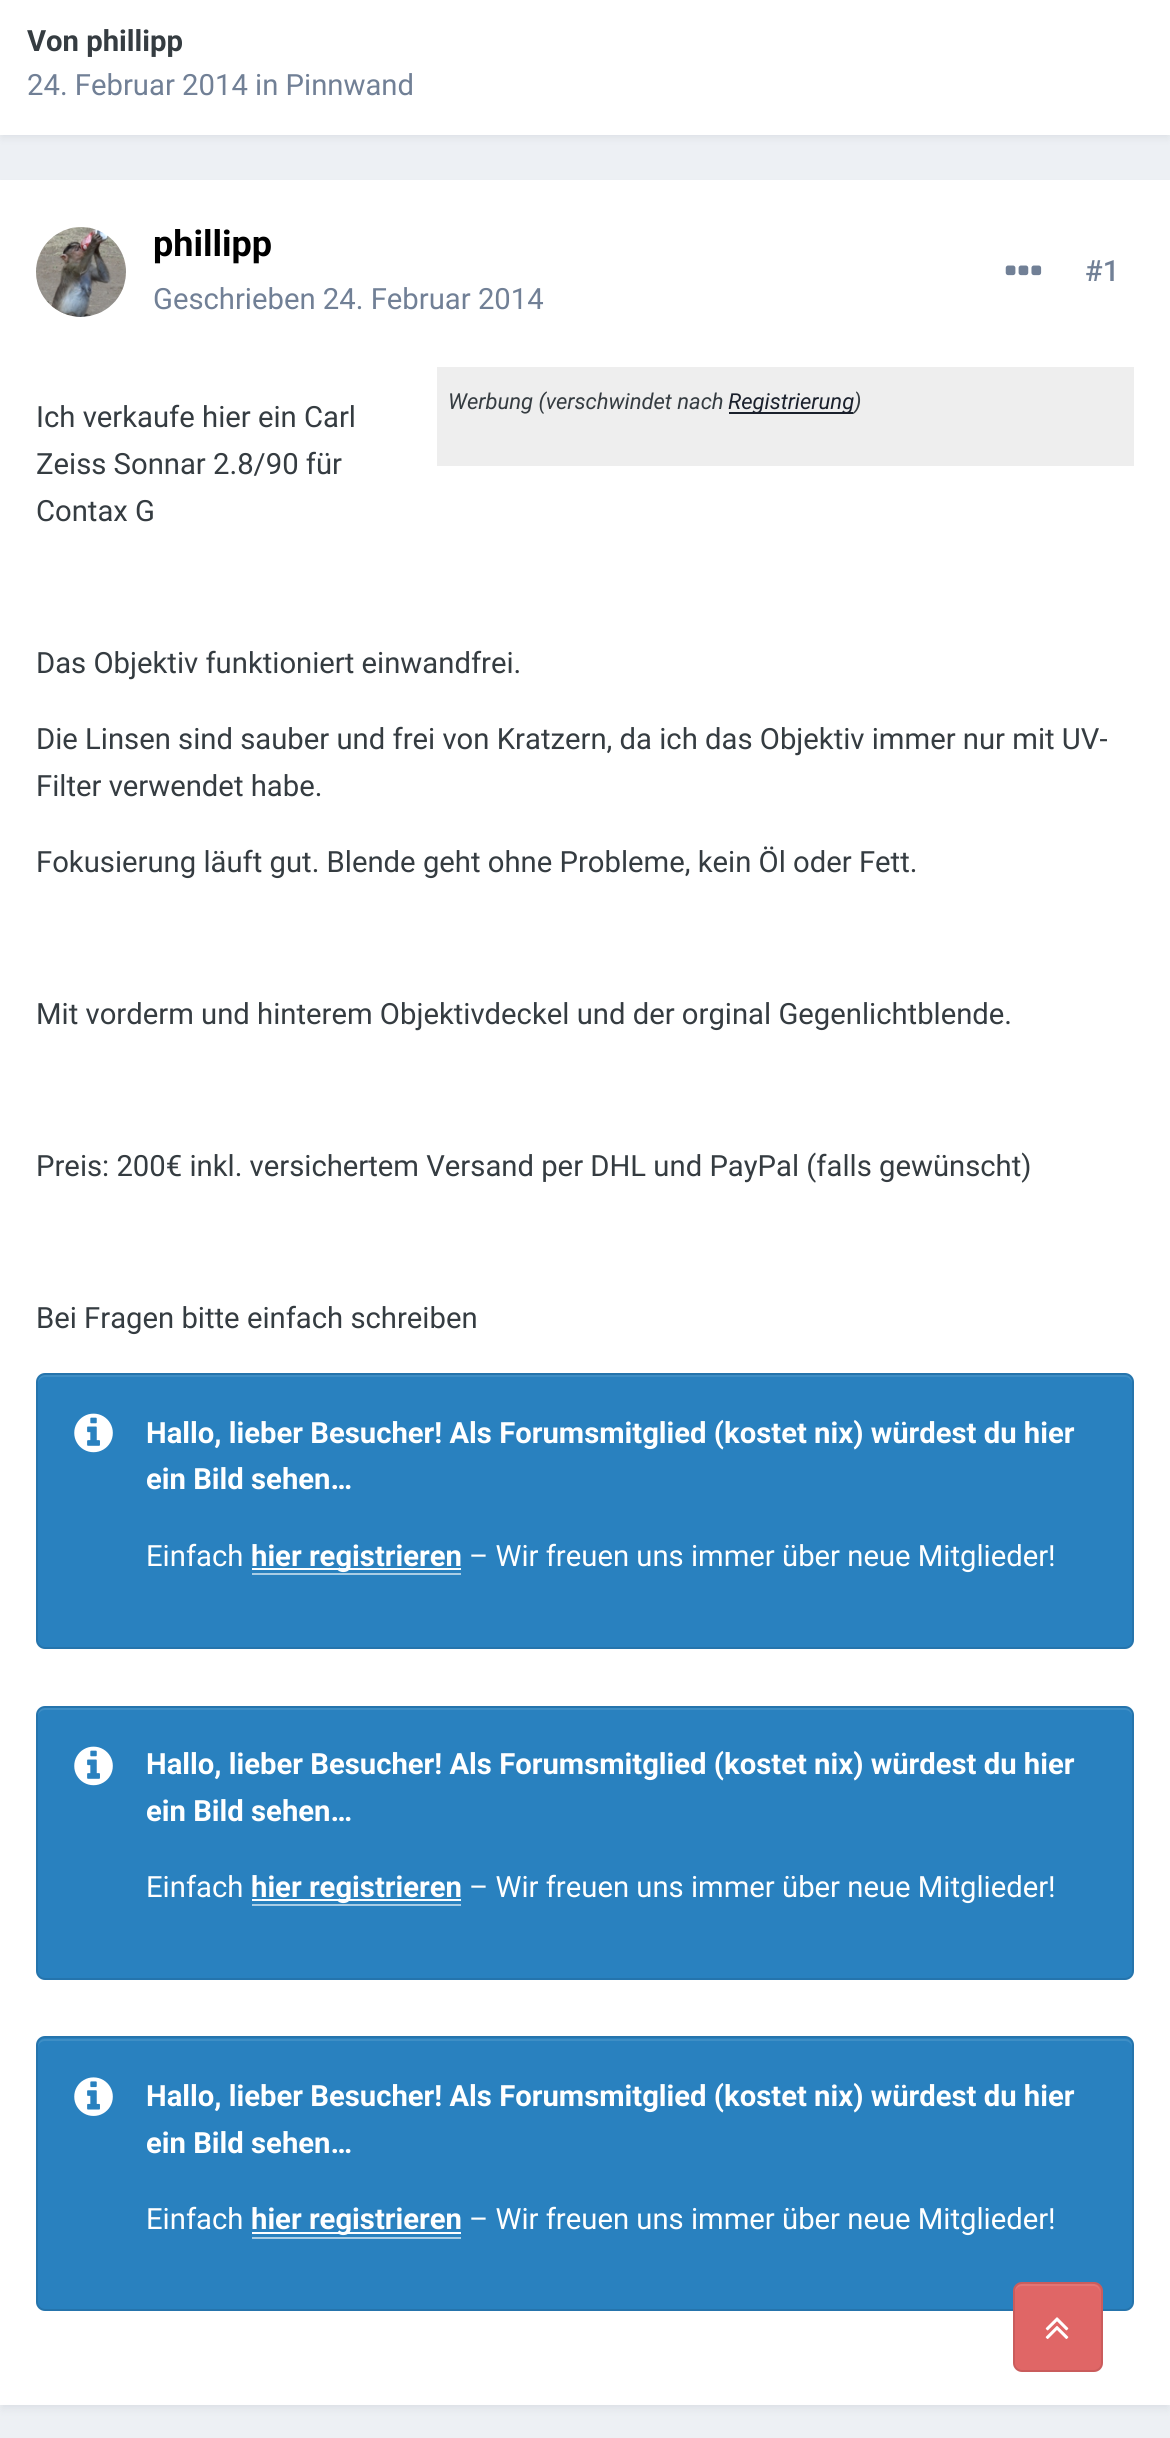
import math
import cairo

surface = cairo.ImageSurface(cairo.FORMAT_RGB24, 1170, 2438)
c = cairo.Context(surface)
options = cairo.FontOptions()
options.set_hint_metrics(cairo.HINT_METRICS_OFF)
options.set_hint_style(cairo.HINT_STYLE_NONE)
c.set_font_options(options)
c.set_miter_limit(4)
def C(code):
 c.set_source_rgb(*(v / 255 for v in bytes.fromhex(code[-6:])))
def F(family, size, italic, bold):
 c.select_font_face(family, cairo.FONT_SLANT_ITALIC if italic else cairo.FONT_SLANT_NORMAL, cairo.FONT_WEIGHT_BOLD if bold else cairo.FONT_WEIGHT_NORMAL)
 c.set_font_size(size)
def T(x, y, s):
 c.move_to(x, y)
 c.show_text(s)
def R(x, y, w, h):
 c.rectangle(x, y, w, h)
 c.fill()
def Q(x, y, w, h, r):
 c.new_sub_path()
 for i, (u, v) in enumerate([(x + w - r, y + h - r), (x + r, y + h - r), (x + r, y + r), (x + w - r, y + r)]):
  c.arc(u, v, r, i * math.pi / 2, (i + 1) * math.pi / 2)
 c.close_path()
def S(x, y, w, h, r, blur, alpha):
 c.push_group_with_content(cairo.CONTENT_ALPHA)
 c.set_operator(cairo.OPERATOR_SOURCE)
 for i in range(15, -16, -2):
  e = blur * i / 6
  if min(w, h) + 2 * e > 0:
   c.set_source_rgba(0, 0, 0, alpha * math.erfc((i - 1) / 8.5) / 2)
   Q(x - e, y - e, w + 2 * e, h + 2 * e, max(0, min(r + e + blur * .6, min(w, h) / 2 + e)))
   c.fill()
 c.mask(c.pop_group())
def I(path, x, y, w, h):
 c.save()
 c.set_source_surface(cairo.ImageSurface.create_from_png(path), x, y)
 c.rectangle(x, y, w, h)
 c.fill()
 c.restore()
C('edf0f4')
c.paint()
C('2d3748')
S(2,-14,1166,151,0,4.5,.1)
C('ffffff')
R(0,0,1170,135)
F('Roboto',29.25,0,1)
C('353c41')
T(27,51,'Von phillipp')
F('Roboto',29.25,0,0)
C('718096')
T(27,95,'24. Februar 2014 in Pinnwand')
C('2d3748')
S(2,187,1166,2221,0,4.5,.1)
C('ffffff')
R(0,180,1170,2225)
I('1.png',36,227,90,90)
F('Roboto',36,0,1)
C('000000')
T(153,256,'phillipp')
F('Roboto',29.25,0,0)
C('718096')
T(153,309,'Geschrieben 24. Februar 2014')
I('2.png',1005,265,37,11)
F('Roboto Medium',29.25,0,0)
T(1085,281,'#1')
F('Roboto',29.25,0,0)
C('353c41')
T(36,427,'Ich verkaufe hier ein Carl')
T(36,474,'Zeiss Sonnar 2.8/90 für')
T(36,521,'Contax G')
C('eeeeee')
R(437,367,697,99)
F('Roboto',22,1,0)
C('353c41')
T(448,409,'Werbung (verschwindet nach')
C('1a202c')
R(729,412,124,2)
T(728,409,'Registrierung')
C('353c41')
T(854,409,')')
F('Roboto',29.25,0,0)
T(36,673,'Das Objektiv funktioniert einwandfrei.')
T(36,749,'Die Linsen sind sauber und frei von Kratzern, da ich das Objektiv immer nur mit UV-')
T(36,796,'Filter verwendet habe.')
T(36,872,'Fokusierung läuft gut. Blende geht ohne Probleme, kein Öl oder Fett.')
T(36,1024,'Mit vorderm und hinterem Objektivdeckel und der orginal Gegenlichtblende.')
T(36,1176,'Preis: 200€ inkl. versichertem Versand per DHL und PayPal (falls gewünscht)')
T(36,1328,'Bei Fragen bitte einfach schreiben')
C('2981bf')
Q(36,1373,1098,276,9)
c.fill()
C('3e8ec5')
c.new_path()
c.move_to(45,1377)
c.line_to(1125,1377)
c.curve_to(1129,1377,1132,1380,1132,1384)
c.line_to(1132,1382)
c.curve_to(1132,1378,1129,1375,1125,1375)
c.line_to(45,1375)
c.curve_to(41,1375,38,1378,38,1382)
c.line_to(38,1384)
c.curve_to(38,1380,41,1377,45,1377)
c.close_path()
c.fill()
Q(37,1374,1096,274,8)
c.set_source_rgba(0,0,0,0.1)
c.stroke()
I('3.png',74,1413,39,40)
F('Roboto',29.25,0,1)
C('ffffff')
T(146,1443,'Hallo, lieber Besucher! Als Forumsmitglied (kostet nix) würdest du hier')
T(146,1489,'ein Bild sehen…')
F('Roboto',29.25,0,0)
T(146,1566,'Einfach')
R(252,1568,209,2)
F('Roboto',29.25,0,1)
T(251,1566,'hier registrieren')
C('a9cde5')
R(252,1573,209,2)
F('Roboto',29.25,0,0)
C('ffffff')
T(469,1566,'– Wir freuen uns immer über neue Mitglieder!')
C('2981bf')
Q(36,1706,1098,274,9)
c.fill()
C('3e8ec5')
c.new_path()
c.move_to(45,1710)
c.line_to(1125,1710)
c.curve_to(1129,1710,1132,1713,1132,1717)
c.line_to(1132,1715)
c.curve_to(1132,1711,1129,1708,1125,1708)
c.line_to(45,1708)
c.curve_to(41,1708,38,1711,38,1715)
c.line_to(38,1717)
c.curve_to(38,1713,41,1710,45,1710)
c.close_path()
c.fill()
Q(37,1707,1096,272,8)
c.set_source_rgba(0,0,0,0.1)
c.stroke()
I('3.png',74,1746,39,40)
F('Roboto',29.25,0,1)
C('ffffff')
T(146,1774,'Hallo, lieber Besucher! Als Forumsmitglied (kostet nix) würdest du hier')
T(146,1821,'ein Bild sehen…')
F('Roboto',29.25,0,0)
T(146,1897,'Einfach')
R(252,1899,209,2)
F('Roboto',29.25,0,1)
T(251,1897,'hier registrieren')
C('a9cde5')
R(252,1904,209,2)
F('Roboto',29.25,0,0)
C('ffffff')
T(469,1897,'– Wir freuen uns immer über neue Mitglieder!')
C('2981bf')
Q(36,2036,1098,275,9)
c.fill()
C('3e8ec5')
c.new_path()
c.move_to(45,2041)
c.line_to(1125,2041)
c.curve_to(1129,2041,1132,2044,1132,2048)
c.line_to(1132,2046)
c.curve_to(1132,2042,1129,2039,1125,2039)
c.line_to(45,2039)
c.curve_to(41,2039,38,2042,38,2046)
c.line_to(38,2048)
c.curve_to(38,2044,41,2041,45,2041)
c.close_path()
c.fill()
Q(37,2037,1096,273,8)
c.set_source_rgba(0,0,0,0.1)
c.stroke()
I('4.png',74,2077,39,39)
F('Roboto',29.25,0,1)
C('ffffff')
T(146,2106,'Hallo, lieber Besucher! Als Forumsmitglied (kostet nix) würdest du hier')
T(146,2153,'ein Bild sehen…')
F('Roboto',29.25,0,0)
T(146,2229,'Einfach')
R(252,2232,209,2)
F('Roboto',29.25,0,1)
T(251,2229,'hier registrieren')
C('a9cde5')
R(252,2237,209,2)
F('Roboto',29.25,0,0)
C('ffffff')
T(469,2229,'– Wir freuen uns immer über neue Mitglieder!')
C('e06666')
Q(1013,2282,90,90,9)
c.fill()
C('e37575')
c.new_path()
c.move_to(1022,2286)
c.line_to(1094,2286)
c.curve_to(1097,2286,1100,2289,1100,2293)
c.curve_to(1100,2281,1090,2284,1081,2284)
c.line_to(1034,2284)
c.curve_to(1025,2284,1015,2281,1015,2293)
c.curve_to(1015,2289,1018,2286,1022,2286)
c.close_path()
c.fill()
Q(1014,2283,88,88,8)
c.set_source_rgba(0,0,0,0.1)
c.stroke()
I('5.png',1045,2317,24,22)
surface.write_to_png('o.png')
